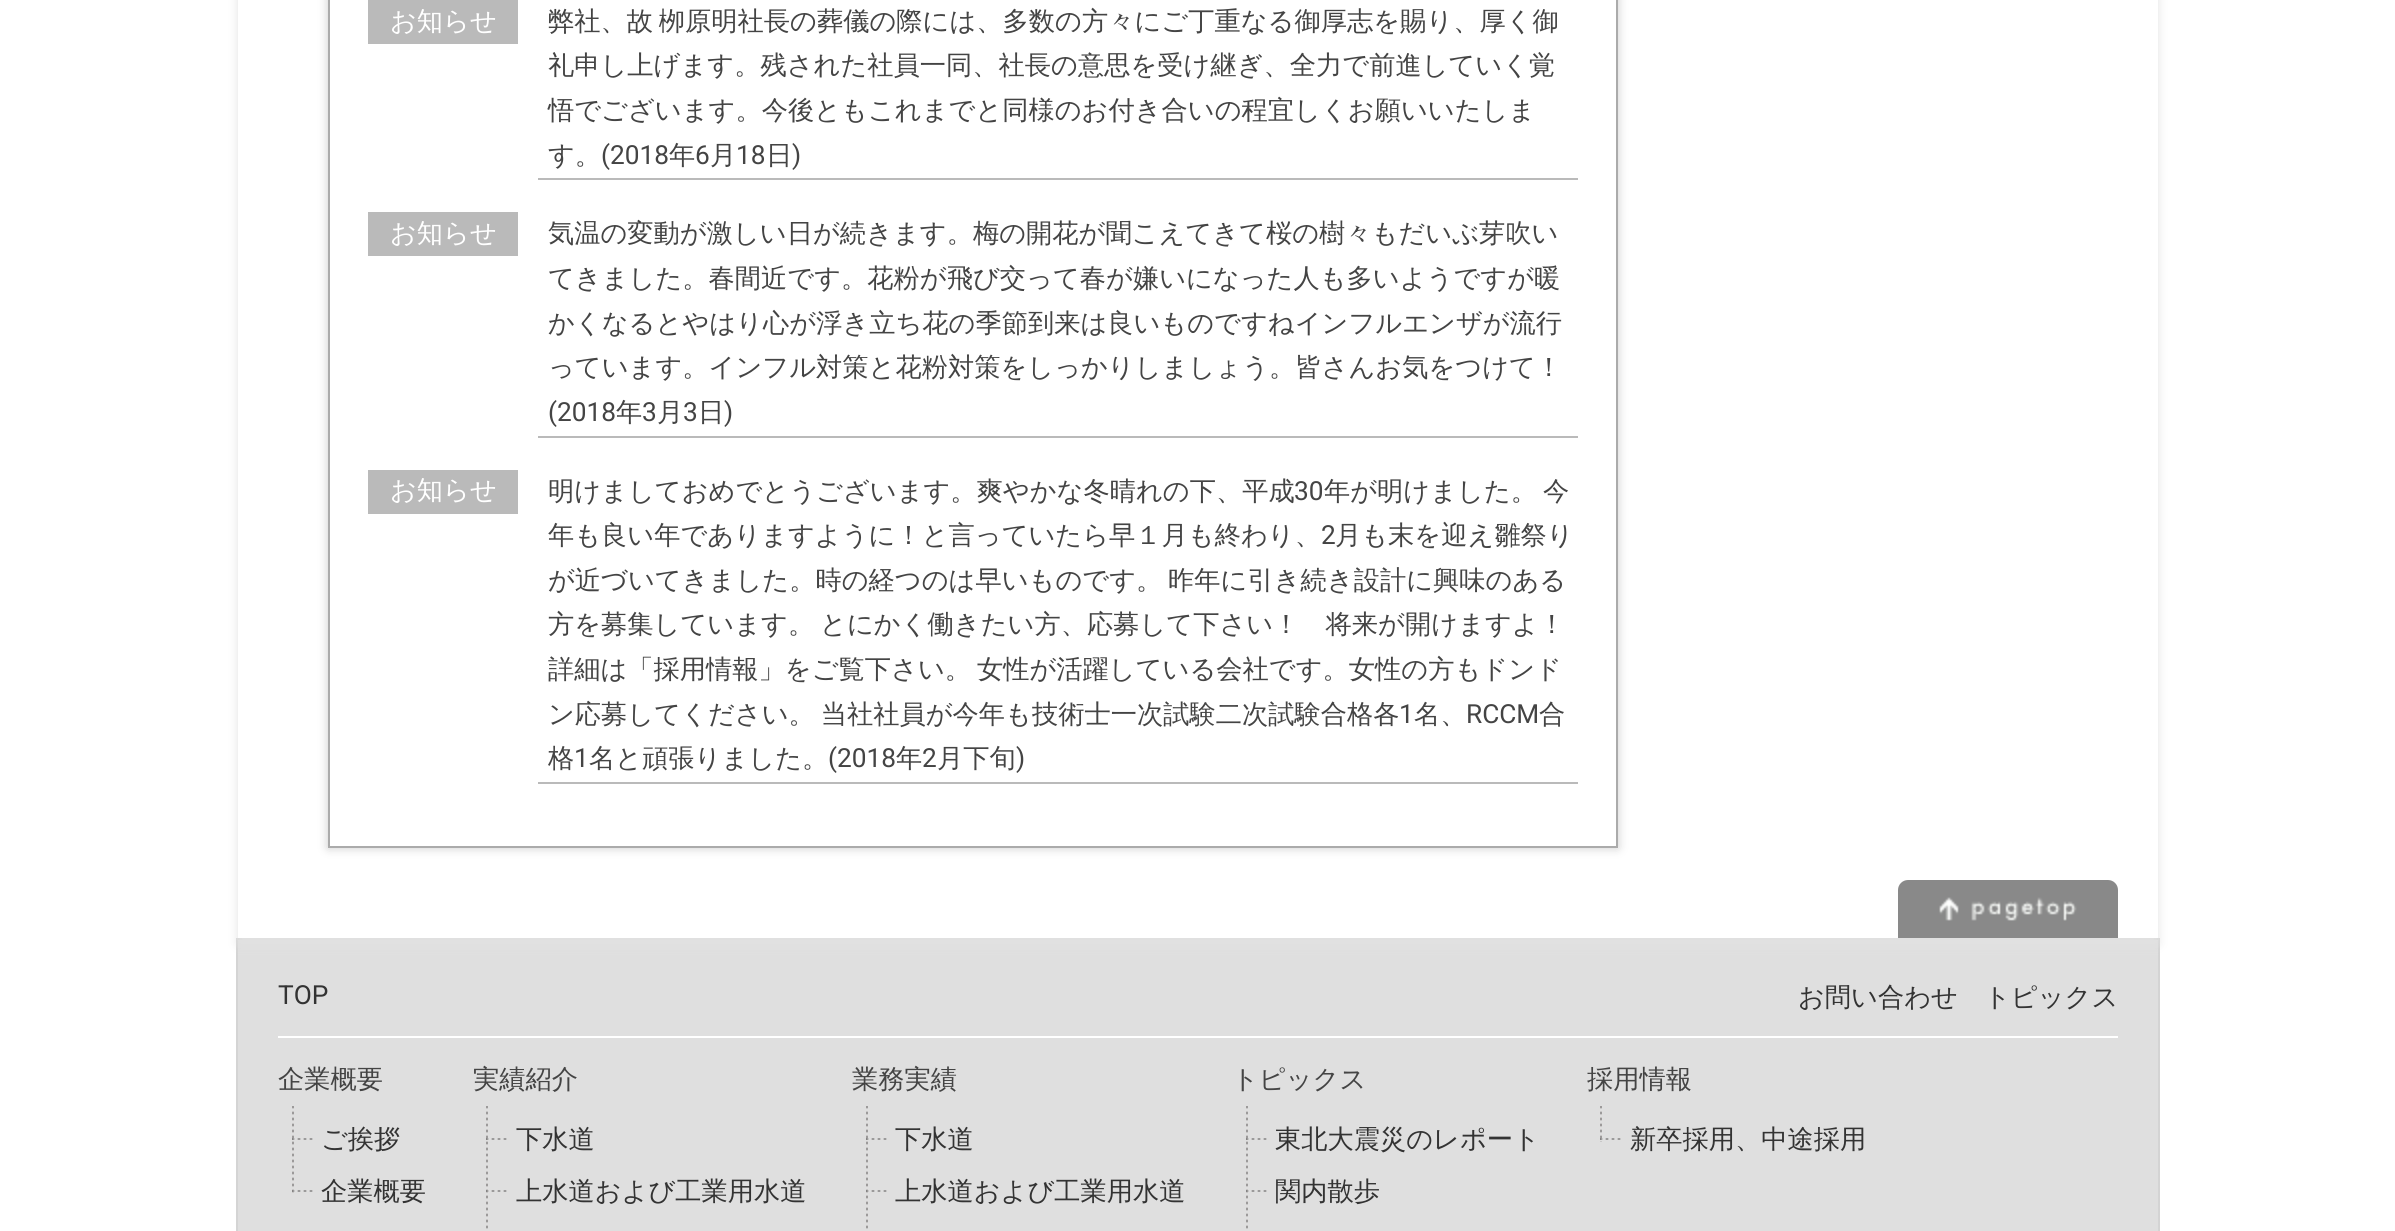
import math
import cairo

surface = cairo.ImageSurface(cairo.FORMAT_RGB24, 2395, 1231)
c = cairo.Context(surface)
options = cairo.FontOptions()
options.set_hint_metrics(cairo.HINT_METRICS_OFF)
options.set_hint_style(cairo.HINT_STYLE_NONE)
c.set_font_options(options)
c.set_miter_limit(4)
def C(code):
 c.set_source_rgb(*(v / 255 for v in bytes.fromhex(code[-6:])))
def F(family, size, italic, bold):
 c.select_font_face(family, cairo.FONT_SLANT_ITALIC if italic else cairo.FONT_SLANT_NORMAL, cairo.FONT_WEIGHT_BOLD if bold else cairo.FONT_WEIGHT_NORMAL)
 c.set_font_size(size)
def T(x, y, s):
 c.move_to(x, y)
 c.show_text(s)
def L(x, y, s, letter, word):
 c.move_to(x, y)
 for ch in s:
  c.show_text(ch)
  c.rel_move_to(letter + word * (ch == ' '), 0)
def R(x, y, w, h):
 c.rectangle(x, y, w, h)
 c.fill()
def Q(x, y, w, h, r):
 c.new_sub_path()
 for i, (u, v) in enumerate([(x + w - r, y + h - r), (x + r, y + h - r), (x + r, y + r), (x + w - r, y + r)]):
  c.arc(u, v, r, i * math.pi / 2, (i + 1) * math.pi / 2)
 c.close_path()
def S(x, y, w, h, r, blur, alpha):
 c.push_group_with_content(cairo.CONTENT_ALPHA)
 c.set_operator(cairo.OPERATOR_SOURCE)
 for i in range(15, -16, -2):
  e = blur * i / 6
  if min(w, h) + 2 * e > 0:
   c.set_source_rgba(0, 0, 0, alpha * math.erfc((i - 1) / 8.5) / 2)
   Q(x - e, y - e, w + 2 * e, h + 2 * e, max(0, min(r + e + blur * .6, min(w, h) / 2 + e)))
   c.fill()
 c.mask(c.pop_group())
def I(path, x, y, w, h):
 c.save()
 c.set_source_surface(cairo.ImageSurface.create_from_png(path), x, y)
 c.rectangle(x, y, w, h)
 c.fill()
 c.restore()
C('ffffff')
c.paint()
C('dfdfdf')
c.rectangle(237,939,1922,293)
c.fill_preserve()
C('d4d4d4')
c.stroke()
C('898989')
c.new_path()
c.move_to(1908,880)
c.line_to(2108,880)
c.curve_to(2113.5,880,2118,884.5,2118,890)
c.line_to(2118,938)
c.line_to(1898,938)
c.line_to(1898,890)
c.curve_to(1898,884.5,1902.5,880,1908,880)
c.close_path()
c.fill()
I('1.png',1939,897,138,24)
c.save()
c.set_fill_rule(cairo.FILL_RULE_EVEN_ODD)
c.new_path()
c.move_to(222,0)
c.line_to(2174,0)
c.line_to(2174,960)
c.line_to(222,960)
c.close_path()
c.move_to(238,-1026)
c.line_to(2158,-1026)
c.line_to(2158,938)
c.line_to(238,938)
c.close_path()
c.clip()
C('e2e2e2')
S(238,-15,1920,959,0,5,1)
c.restore()
c.save()
c.set_fill_rule(cairo.FILL_RULE_EVEN_ODD)
c.new_path()
c.move_to(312,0)
c.line_to(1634,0)
c.line_to(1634,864)
c.line_to(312,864)
c.close_path()
c.move_to(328,-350)
c.line_to(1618,-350)
c.line_to(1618,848)
c.line_to(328,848)
c.close_path()
c.clip()
C('cccccc')
S(328,-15,1290,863,0,5,1)
c.restore()
c.rectangle(329,-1,1288,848)
C('ababab')
c.stroke()
C('bababa')
R(368,0,150,44)
F('WenQuanYi Zen Hei Medium',26.25,0,0)
C('ffffff')
T(390,30,'お知らせ')
C('bababa')
R(538,178,1040,2)
C('444444')
L(548,30,'弊社、故 栁原明社長の葬儀の際には、多数の方々にご丁重なる御厚志を賜り、厚く御',0,-2)
T(548,74,'礼申し上げます。残された社員一同、社長の意思を受け継ぎ、全力で前進していく覚')
T(548,119,'悟でございます。今後ともこれまでと同様のお付き合いの程宜しくお願いいたしま')
T(548,164,'す。')
F('Roboto',26.25,0,0)
T(601,164,'(2018')
F('WenQuanYi Zen Hei Medium',26.25,0,0)
T(669,164,'年')
F('Roboto',26.25,0,0)
T(695,164,'6')
F('WenQuanYi Zen Hei Medium',26.25,0,0)
T(710,164,'月')
F('Roboto',26.25,0,0)
T(736,164,'18')
F('WenQuanYi Zen Hei Medium',26.25,0,0)
T(766,164,'日')
F('Roboto',26.25,0,0)
T(792,164,')')
C('bababa')
R(368,212,150,44)
F('WenQuanYi Zen Hei Medium',26.25,0,0)
C('ffffff')
T(390,242,'お知らせ')
C('bababa')
R(538,436,1040,2)
C('444444')
T(548,242,'気温の変動が激しい日が続きます。梅の開花が聞こえてきて桜の樹々もだいぶ芽吹い')
T(548,287,'てきました。春間近です。花粉が飛び交って春が嫌いになった人も多いようですが暖')
T(548,332,'かくなるとやはり心が浮き立ち花の季節到来は良いものですねインフルエンザが流行')
T(548,376,'っています。インフル対策と花粉対策をしっかりしましょう。皆さんお気をつけて！')
F('Roboto',26.25,0,0)
T(548,421,'(2018')
F('WenQuanYi Zen Hei Medium',26.25,0,0)
T(616,421,'年')
F('Roboto',26.25,0,0)
T(642,421,'3')
F('WenQuanYi Zen Hei Medium',26.25,0,0)
T(657,421,'月')
F('Roboto',26.25,0,0)
T(683,421,'3')
F('WenQuanYi Zen Hei Medium',26.25,0,0)
T(698,421,'日')
F('Roboto',26.25,0,0)
T(724,421,')')
C('bababa')
R(368,470,150,44)
F('WenQuanYi Zen Hei Medium',26.25,0,0)
C('ffffff')
T(390,499,'お知らせ')
C('bababa')
R(538,782,1040,2)
C('444444')
T(548,500,'明けましておめでとうございます。爽やかな冬晴れの下、平成')
F('Roboto',26.25,0,0)
T(1294,500,'30')
F('WenQuanYi Zen Hei Medium',26.25,0,0)
L(1324,500,'年が明けました。 今',0,-2)
T(548,544,'年も良い年でありますように！と言っていたら早１月も終わり、')
F('Roboto',26.25,0,0)
T(1321,544,'2')
F('WenQuanYi Zen Hei Medium',26.25,0,0)
T(1335,544,'月も末を迎え雛祭り')
L(548,589,'が近づいてきました。時の経つのは早いものです。 昨年に引き続き設計に興味のある',0,-2)
L(548,633,'方を募集しています。 とにかく働きたい方、応募して下さい！　将来が開けますよ！',0,-2)
L(548,678,'詳細は「採用情報」をご覧下さい。 女性が活躍している会社です。女性の方もドンド',0,-2)
L(548,723,'ン応募してください。 当社社員が今年も技術士一次試験二次試験合格各',0,-2)
F('Roboto',26.25,0,0)
T(1399,723,'1')
F('WenQuanYi Zen Hei Medium',26.25,0,0)
T(1414,723,'名、')
F('Roboto',26.25,0,0)
T(1466,723,'RCCM')
F('WenQuanYi Zen Hei Medium',26.25,0,0)
T(1539,723,'合')
T(548,767,'格')
F('Roboto',26.25,0,0)
T(574,767,'1')
F('WenQuanYi Zen Hei Medium',26.25,0,0)
T(589,767,'名と頑張りました。')
F('Roboto',26.25,0,0)
T(828,767,'(2018')
F('WenQuanYi Zen Hei Medium',26.25,0,0)
T(896,767,'年')
F('Roboto',26.25,0,0)
T(922,767,'2')
F('WenQuanYi Zen Hei Medium',26.25,0,0)
T(937,767,'月下旬')
F('Roboto',26.25,0,0)
T(1016,767,')')
C('ffffff')
R(278,1036,1840,2)
C('333333')
T(278,1004,'TOP')
F('WenQuanYi Zen Hei Medium',26.25,0,0)
T(1798,1006,'お問い合わせ')
T(1984,1006,'トピックス')
C('444444')
T(278,1088,'企業概要')
I('2.png',292,1106,2,87)
I('3.png',292,1138,21,2)
C('333333')
T(321,1148,'ご挨拶')
I('3.png',292,1190,21,2)
T(321,1200,'企業概要')
C('444444')
T(473,1088,'実績紹介')
I('4.png',486,1106,2,123)
I('3.png',486,1138,21,2)
C('333333')
T(516,1148,'下水道')
I('3.png',486,1190,21,2)
T(516,1200,'上水道および工業用水道')
C('444444')
T(852,1088,'業務実績')
I('4.png',866,1106,2,123)
I('3.png',866,1138,21,2)
C('333333')
T(895,1148,'下水道')
I('3.png',866,1190,21,2)
T(895,1200,'上水道および工業用水道')
C('444444')
T(1232,1088,'トピックス')
I('4.png',1246,1106,2,123)
I('3.png',1246,1138,21,2)
C('333333')
T(1275,1148,'東北大震災のレポート')
I('3.png',1246,1190,21,2)
T(1275,1200,'関内散歩')
C('444444')
T(1587,1088,'採用情報')
I('5.png',1600,1106,2,36)
I('3.png',1600,1138,21,2)
C('333333')
T(1630,1148,'新卒採用、中途採用')
surface.write_to_png('o.png')
